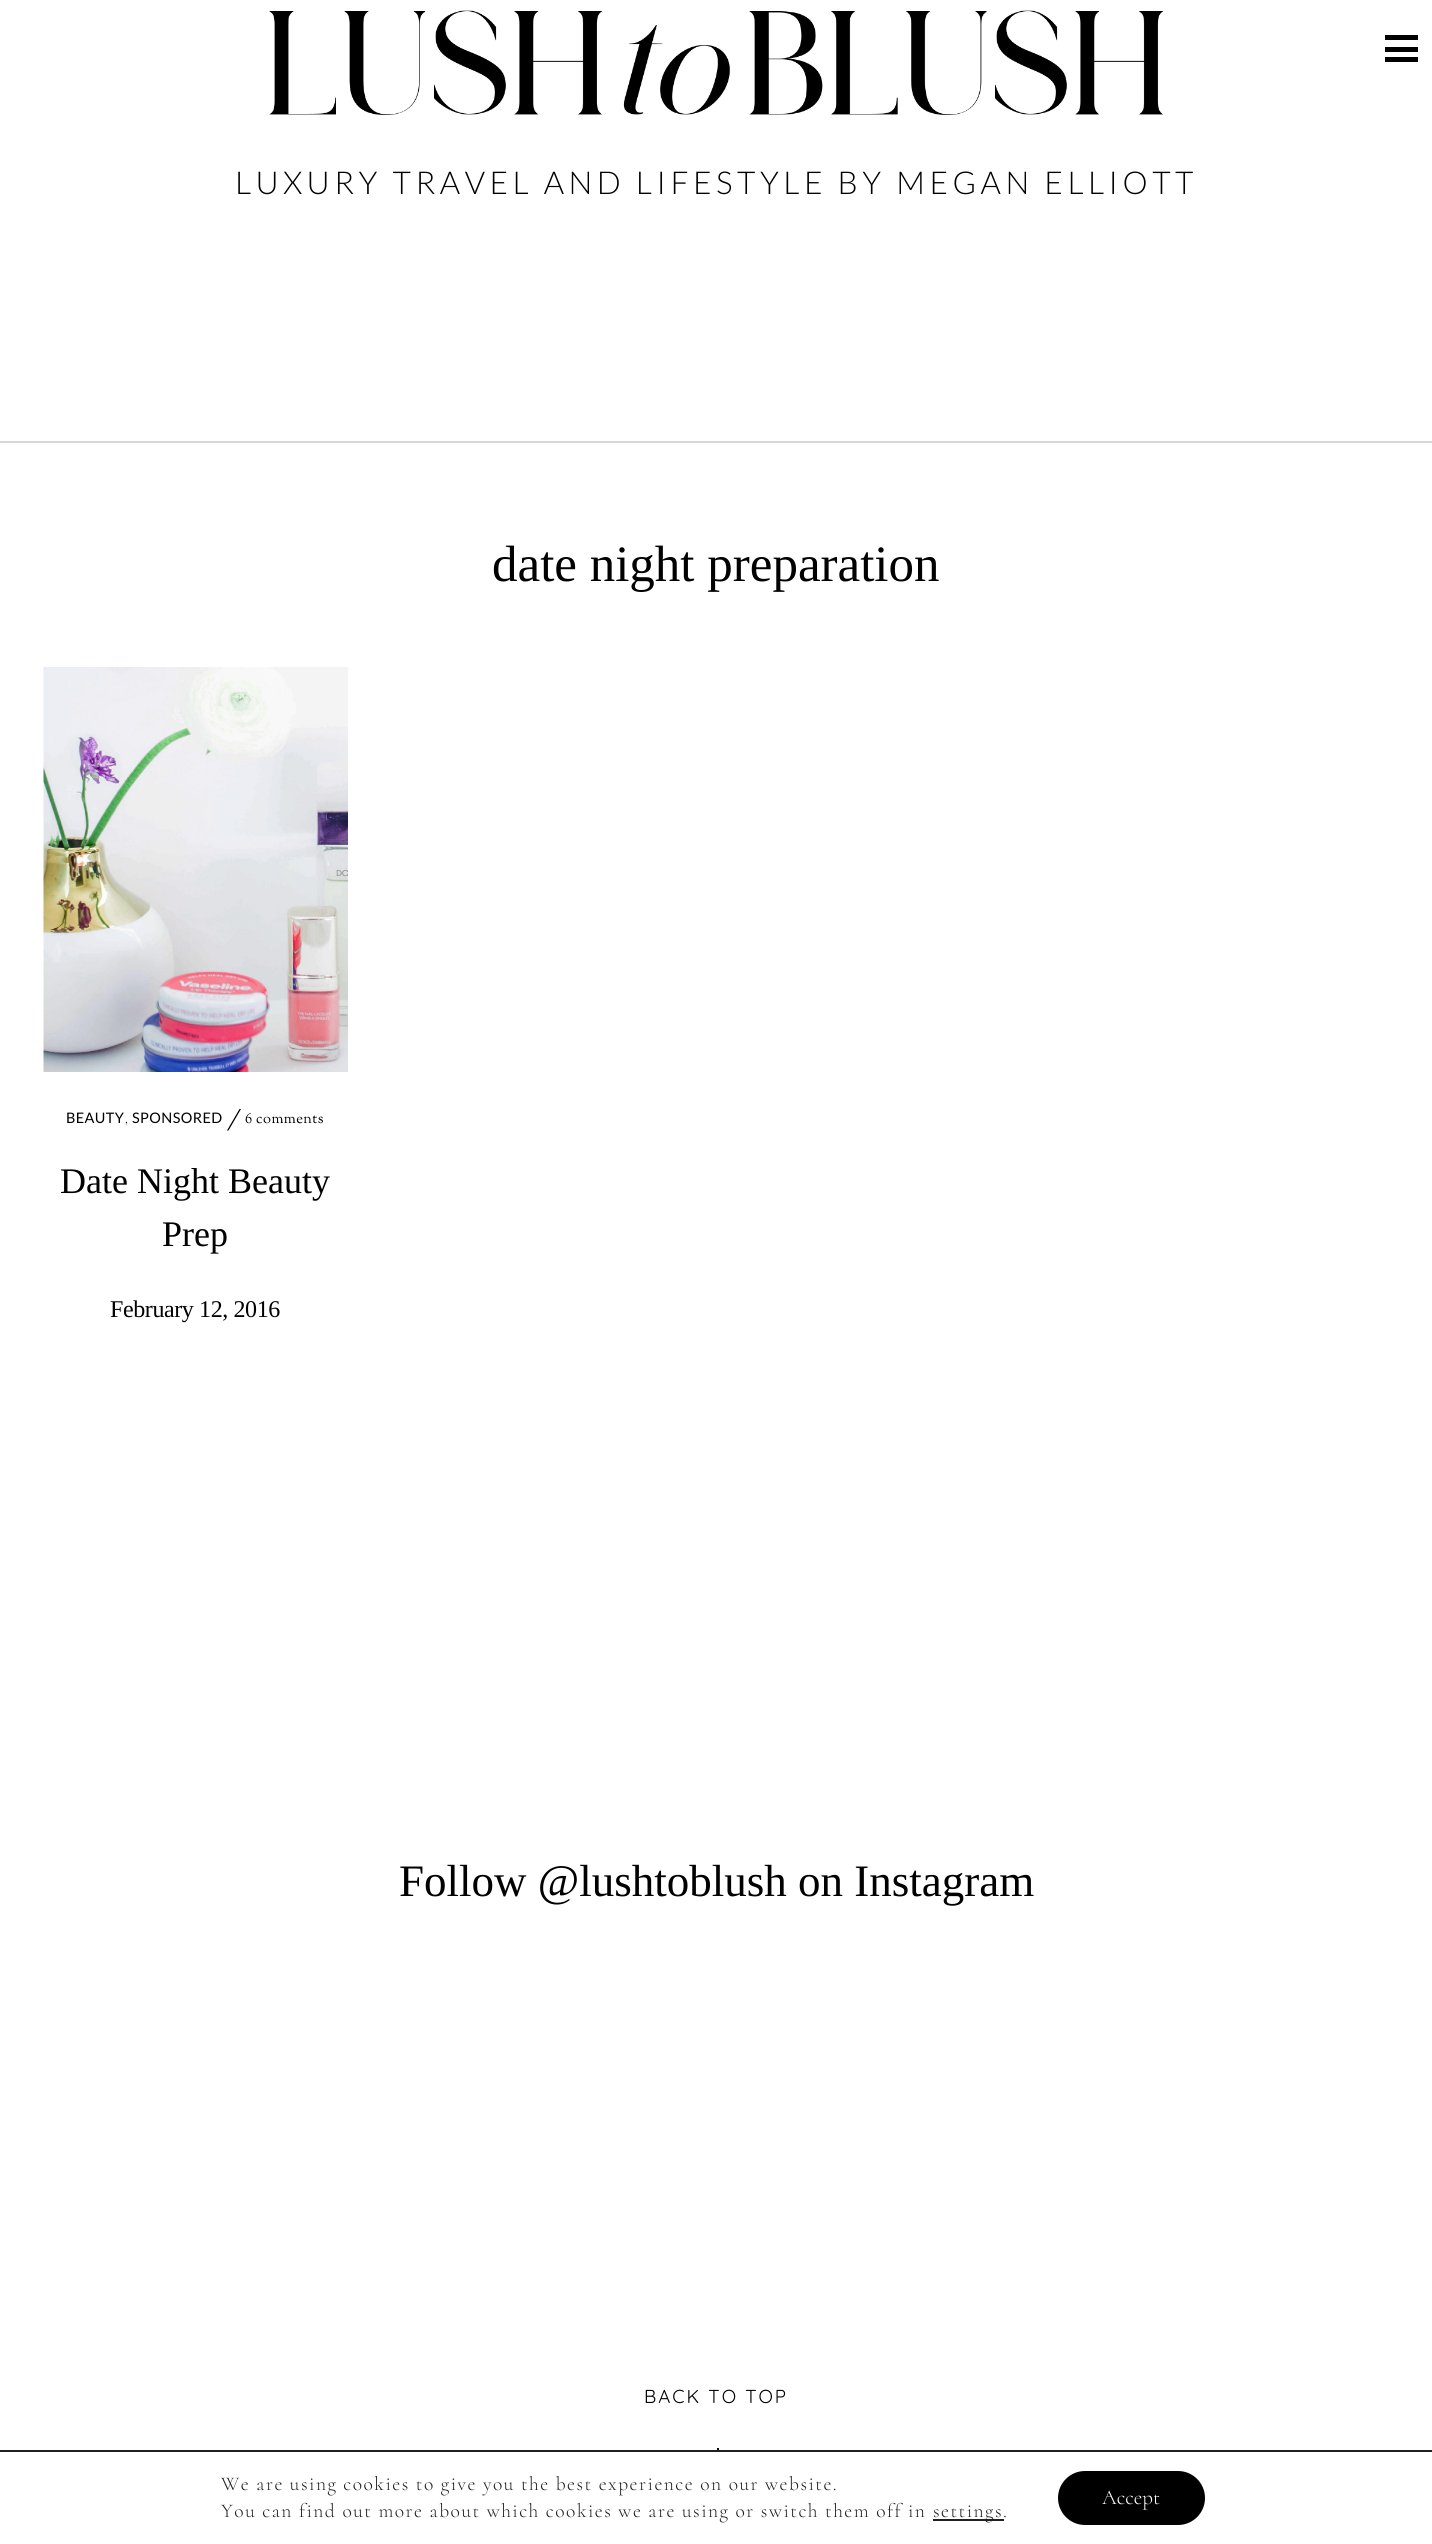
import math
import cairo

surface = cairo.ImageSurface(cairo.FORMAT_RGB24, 1432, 2544)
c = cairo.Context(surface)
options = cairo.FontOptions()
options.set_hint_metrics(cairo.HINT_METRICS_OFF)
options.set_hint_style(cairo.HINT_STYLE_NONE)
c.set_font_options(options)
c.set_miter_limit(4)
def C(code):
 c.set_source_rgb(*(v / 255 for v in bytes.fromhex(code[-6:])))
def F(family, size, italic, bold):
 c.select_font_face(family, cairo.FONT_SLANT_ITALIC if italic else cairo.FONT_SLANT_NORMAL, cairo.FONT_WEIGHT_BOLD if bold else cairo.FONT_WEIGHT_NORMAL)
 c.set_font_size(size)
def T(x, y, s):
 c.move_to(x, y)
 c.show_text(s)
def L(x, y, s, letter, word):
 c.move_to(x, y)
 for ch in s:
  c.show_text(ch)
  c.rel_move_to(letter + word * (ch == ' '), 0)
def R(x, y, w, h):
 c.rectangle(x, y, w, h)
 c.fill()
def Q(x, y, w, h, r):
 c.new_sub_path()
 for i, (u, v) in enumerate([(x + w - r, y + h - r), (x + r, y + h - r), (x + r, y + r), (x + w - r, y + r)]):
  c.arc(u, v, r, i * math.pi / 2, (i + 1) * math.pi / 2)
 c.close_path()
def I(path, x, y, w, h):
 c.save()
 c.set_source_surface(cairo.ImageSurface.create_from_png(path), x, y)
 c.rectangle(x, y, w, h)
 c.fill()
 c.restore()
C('ffffff')
c.paint()
C('d6d6d6')
R(0,441,1432,2)
I('1.png',269,10,895,105)
C('000000')
R(1385,35,33,5)
R(1385,57,33,5)
R(1385,47,33,5)
F('Lato Light',31.5,0,0)
L(235,194,'LUXURY TRAVEL AND LIFESTYLE BY MEGAN ELLIOTT',4.5,0)
F('Liberation Serif',51,0,0)
T(492,581,'date night preparation')
I('2.png',43,667,305,405)
F('Lato',14.5,0,0)
L(66,1123,'BEAUTY',.4,0)
F('Lato Light',14.5,0,0)
L(125,1123,',',.4,0)
F('Lato',14.5,0,0)
L(132,1123,'SPONSORED',.4,0)
c.new_path()
c.move_to(239.5,1109)
c.line_to(241,1109)
c.line_to(228.5,1130.5)
c.line_to(227,1130.5)
c.close_path()
c.fill()
F('Sorts Mill Goudy',14.5,0,0)
L(245,1123,'6 comments',.4,0)
F('Liberation Serif',36,0,0)
T(60,1193,'Date Night Beauty')
T(162,1246,'Prep')
F('Liberation Serif',24,0,0)
L(110,1317,'February 12, 2016',-.4,0)
F('Liberation Serif',45,0,0)
T(399,1896,'Follow @lushtoblush on Instagram')
F('Quicksand',18.75,0,0)
L(644,2403,'BACK TO TOP',2,0)
R(717,2448,2,2)
C('202020')
R(0,2450,1432,2)
F('Cormorant Light',19.5,0,0)
L(221,2490,'We are using cookies to give you the best experience on our website.',1.5,0)
L(221,2517,'You can find out more about which cookies we are using or switch them off in',1.5,0)
R(933,2519,71,2)
L(933,2517,'settings.',1.5,0)
C('000000')
Q(1058,2471,147,54,27)
c.fill()
F('Cormorant Light',21,0,0)
C('ffffff')
T(1102,2504,'Accept')
surface.write_to_png('o.png')
